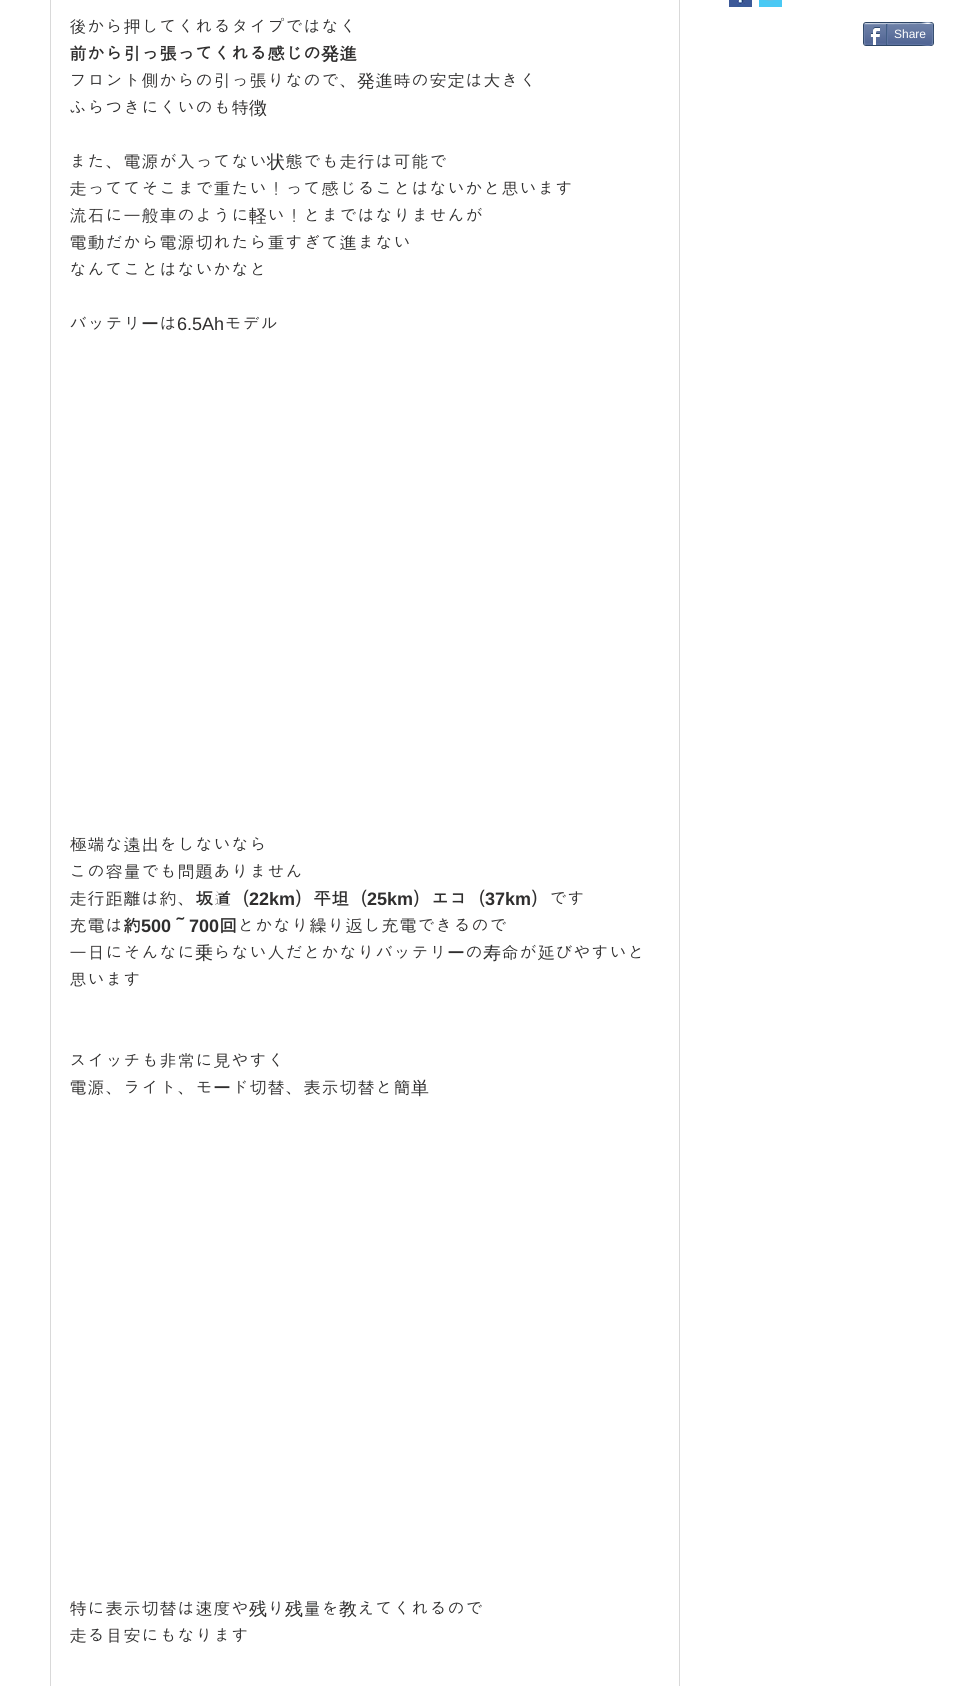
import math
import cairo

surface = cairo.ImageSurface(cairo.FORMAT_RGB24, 967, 1686)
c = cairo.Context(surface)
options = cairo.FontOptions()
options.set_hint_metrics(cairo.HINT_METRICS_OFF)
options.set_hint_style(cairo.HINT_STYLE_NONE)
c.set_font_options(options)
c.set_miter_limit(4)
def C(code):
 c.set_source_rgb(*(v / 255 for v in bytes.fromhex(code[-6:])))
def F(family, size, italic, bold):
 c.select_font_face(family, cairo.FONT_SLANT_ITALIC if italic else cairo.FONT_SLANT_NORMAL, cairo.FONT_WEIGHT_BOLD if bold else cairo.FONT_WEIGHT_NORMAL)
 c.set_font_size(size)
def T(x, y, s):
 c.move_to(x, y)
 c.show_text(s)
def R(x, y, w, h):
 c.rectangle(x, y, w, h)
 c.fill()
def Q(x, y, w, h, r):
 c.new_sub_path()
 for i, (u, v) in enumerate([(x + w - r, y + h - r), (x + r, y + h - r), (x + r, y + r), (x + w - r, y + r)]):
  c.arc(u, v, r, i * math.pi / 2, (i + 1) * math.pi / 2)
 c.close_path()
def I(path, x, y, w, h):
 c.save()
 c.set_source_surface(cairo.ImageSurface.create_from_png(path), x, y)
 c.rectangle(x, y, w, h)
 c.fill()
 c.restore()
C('ffffff')
c.paint()
I('1.png',729,0,23,7)
I('2.png',759,0,23,7)
c.rectangle(50.5,-.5,629,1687)
C('d9d9d9')
c.set_line_width(1)
c.stroke()
F('Dotum',18,0,0)
C('2f2e2e')
T(69,33,'後から押してくれるタイプではなく')
F('Dotum',18,0,1)
T(69,60,'前から引っ張ってくれる感じの')
F('WenQuanYi Zen Hei',18,0,1)
T(321,60,'発')
F('Dotum',18,0,1)
T(339,60,'進')
F('Dotum',18,0,0)
T(69,87,'フロント側からの引っ張りなので、')
F('WenQuanYi Zen Hei Medium',18,0,0)
T(357,87,'発')
F('Dotum',18,0,0)
T(375,87,'進時の安定は大きく')
T(69,114,'ふらつきにくいのも特')
F('WenQuanYi Zen Hei Medium',18,0,0)
T(249,114,'徴')
F('Dotum',18,0,0)
T(69,168,'また、電源が入ってない')
F('WenQuanYi Zen Hei Medium',18,0,0)
T(267,168,'状')
F('Dotum',18,0,0)
T(285,168,'態でも走行は可能で')
T(69,195,'走っててそこまで重たい！って感じることはないかと思います')
T(69,222,'流石に一般車のように')
F('WenQuanYi Zen Hei Medium',18,0,0)
T(249,222,'軽')
F('Dotum',18,0,0)
T(267,222,'い！とまではなりませんが')
T(69,249,'電動だから電源切れたら重すぎて進まない')
T(69,276,'なんてことはないかなと')
T(69,330,'バッテリ')
F('WenQuanYi Zen Hei Medium',18,0,0)
T(141,330,'ー')
F('Dotum',18,0,0)
T(159,330,'は')
F('Liberation Sans',18,0,0)
T(177,330,'6.5Ah')
F('Dotum',18,0,0)
T(224,330,'モデル')
T(69,851,'極端な遠出をしないなら')
T(69,878,'この容量でも問題ありません')
T(69,905,'走行距離は約、')
F('Dotum',18,0,1)
T(195,905,'坂道（')
F('Liberation Sans',18,0,1)
T(249,905,'22km')
F('Dotum',18,0,1)
T(295,905,'）平坦（')
F('Liberation Sans',18,0,1)
T(367,905,'25km')
F('Dotum',18,0,1)
T(413,905,'）エコ（')
F('Liberation Sans',18,0,1)
T(485,905,'37km')
F('Dotum',18,0,1)
T(531,905,'）')
F('Dotum',18,0,0)
T(549,905,'です')
T(69,932,'充電は')
F('Dotum',18,0,1)
T(123,932,'約')
F('Liberation Sans',18,0,1)
T(141,932,'500')
F('Dotum',18,0,1)
T(171,932,'～')
F('Liberation Sans',18,0,1)
T(189,932,'700')
F('Dotum',18,0,1)
T(219,932,'回')
F('Dotum',18,0,0)
T(237,932,'とかなり繰り返し充電できるので')
T(69,959,'一日にそんなに')
F('WenQuanYi Zen Hei Medium',18,0,0)
T(195,959,'乗')
F('Dotum',18,0,0)
T(213,959,'らない人だとかなりバッテリ')
F('WenQuanYi Zen Hei Medium',18,0,0)
T(447,959,'ー')
F('Dotum',18,0,0)
T(465,959,'の')
F('WenQuanYi Zen Hei Medium',18,0,0)
T(483,959,'寿')
F('Dotum',18,0,0)
T(501,959,'命が延びやすいと')
T(69,986,'思います')
T(69,1067,'スイッチも非常に見やすく')
T(69,1094,'電源、ライト、モ')
F('WenQuanYi Zen Hei Medium',18,0,0)
T(213,1094,'ー')
F('Dotum',18,0,0)
T(231,1094,'ド切替、表示切替と簡')
F('WenQuanYi Zen Hei Medium',18,0,0)
T(411,1094,'単')
F('Dotum',18,0,0)
T(69,1615,'特に表示切替は速度や')
F('WenQuanYi Zen Hei Medium',18,0,0)
T(249,1615,'残')
F('Dotum',18,0,0)
T(267,1615,'り')
F('WenQuanYi Zen Hei Medium',18,0,0)
T(285,1615,'残')
F('Dotum',18,0,0)
T(303,1615,'量を')
F('WenQuanYi Zen Hei Medium',18,0,0)
T(339,1615,'教')
F('Dotum',18,0,0)
T(357,1615,'えてくれるので')
T(69,1642,'走る目安にもなります')
Q(863.5,22.5,70,23,2.5)
C('2d4565')
c.stroke()
I('3.png',864,24,69,21)
c.new_path()
c.move_to(865,24)
c.line_to(920,23.5)
c.curve_to(924,23.5,929,21,932,24)
C('9aabc6')
c.stroke()
c.new_path()
c.move_to(932,24)
c.curve_to(933,24.5,933,43.5,932,44)
C('6f83ad')
c.stroke()
c.new_path()
c.move_to(932,44)
c.curve_to(929,47,924,44.5,920,44.5)
c.line_to(865,44)
C('6176a3')
c.stroke()
c.new_path()
c.move_to(865,44)
c.curve_to(864,43.5,864,24.5,865,24)
C('6f83ad')
c.stroke()
I('4.png',870,27,10,18)
C('425e85')
R(886,24,1,21)
F('Liberation Sans',12,0,0)
C('ffffff')
T(894,38,'Share')
C('6176a3')
R(887,24,1,20)
surface.write_to_png('o.png')
